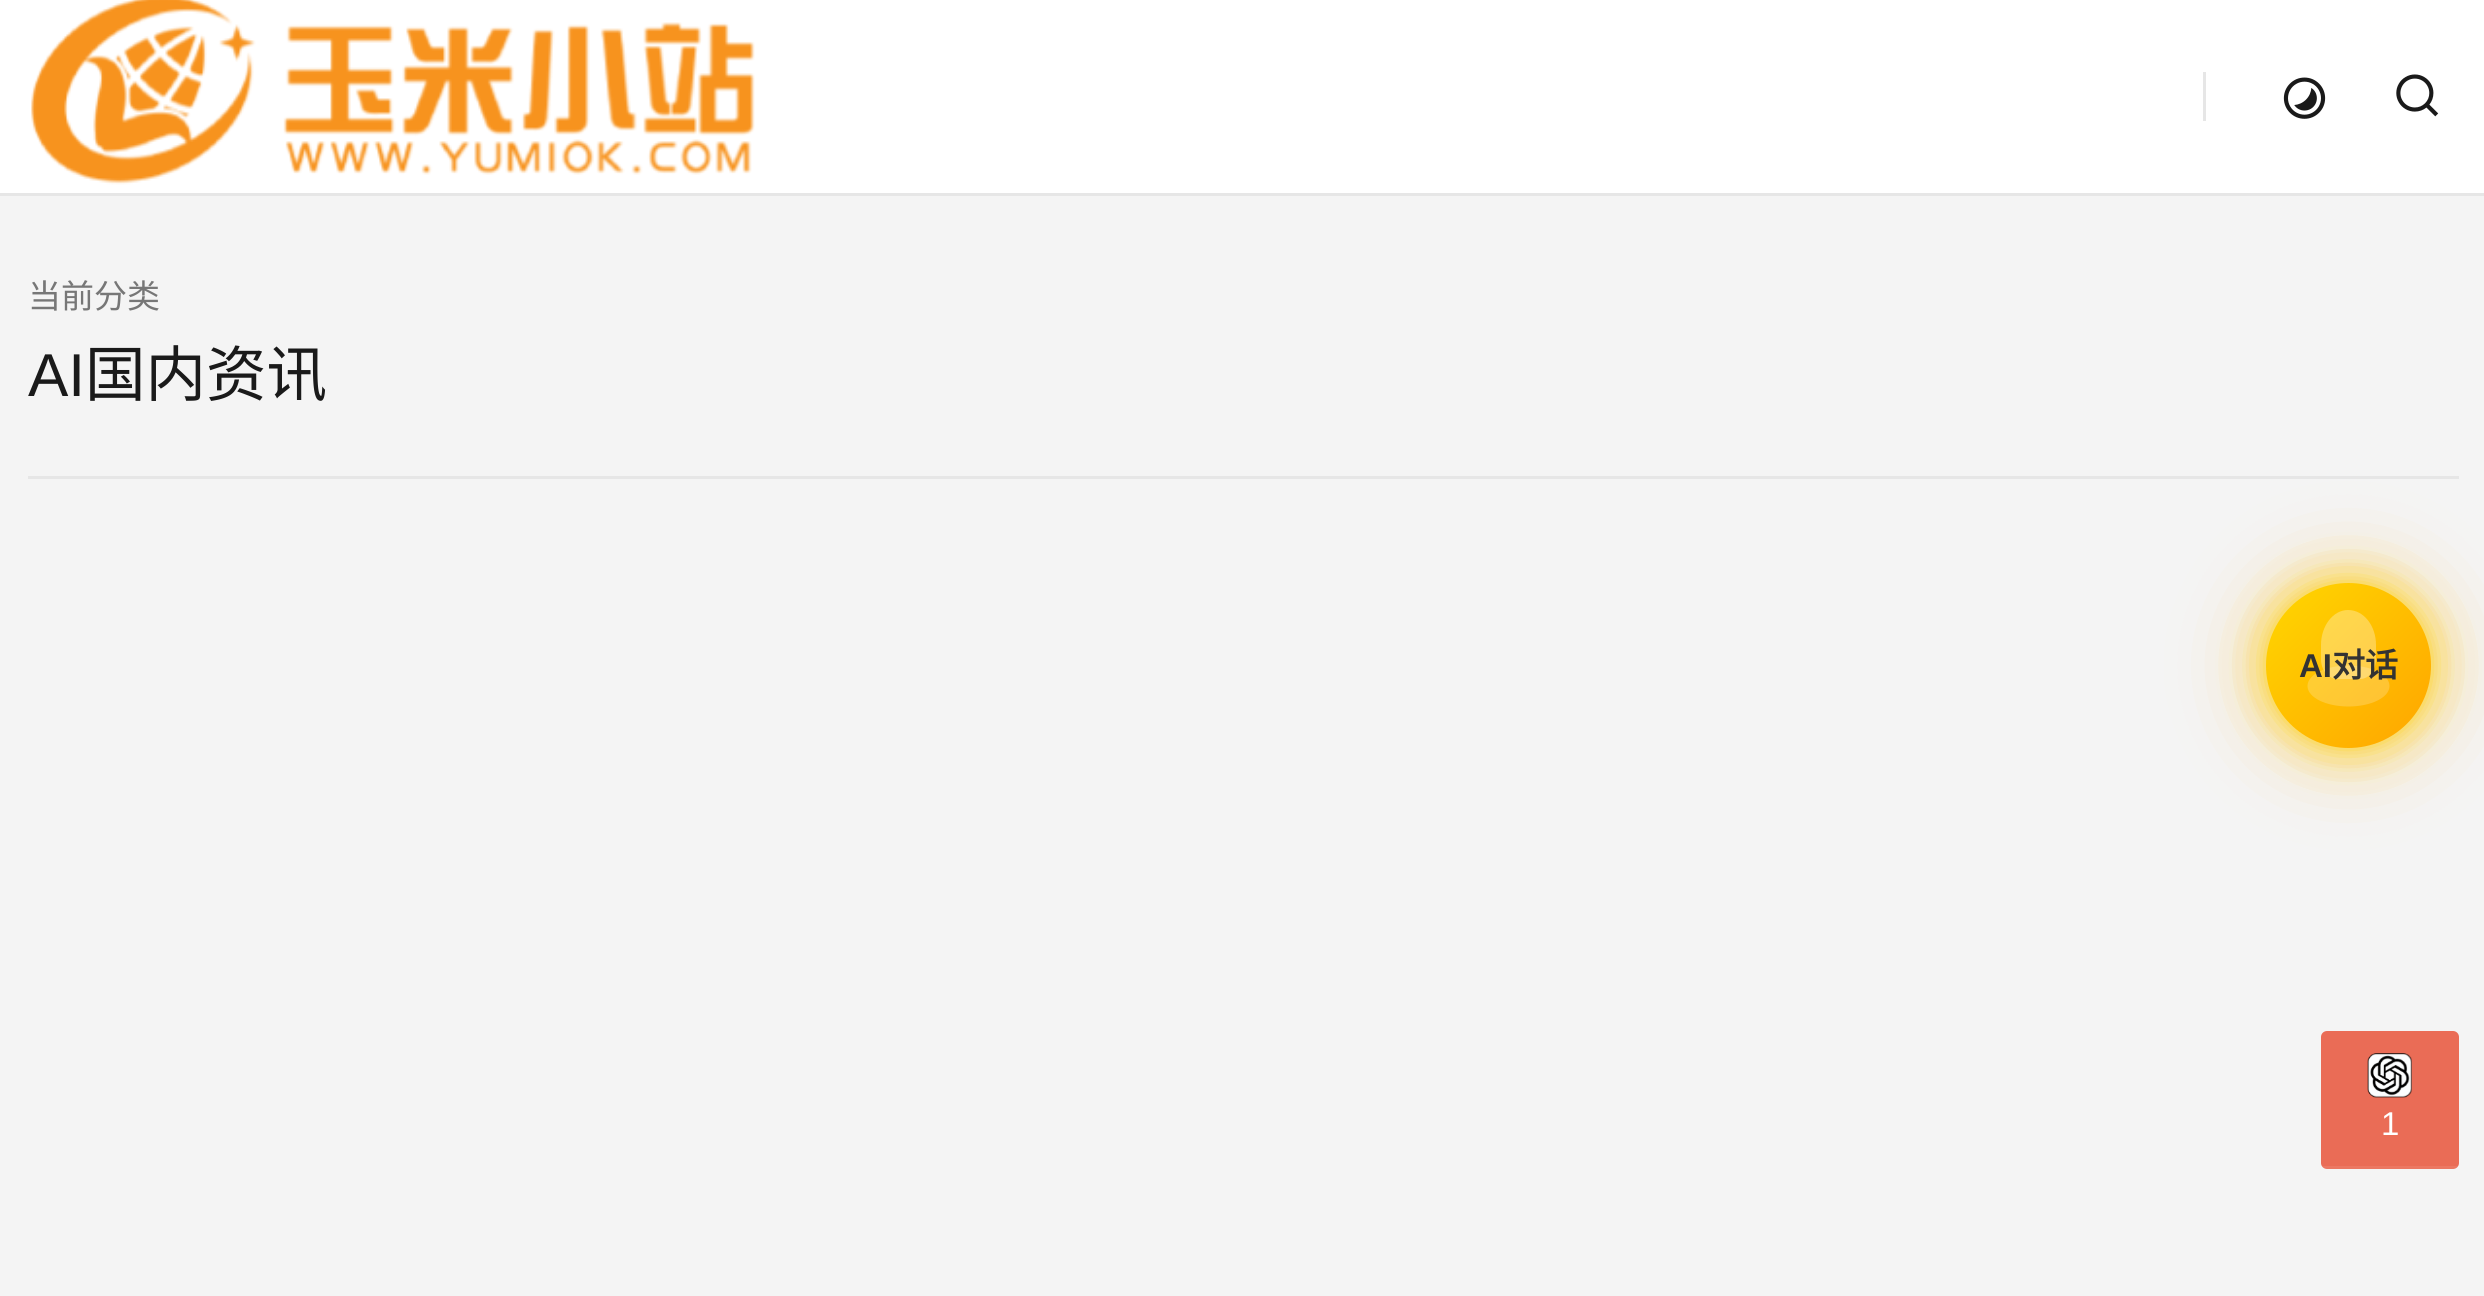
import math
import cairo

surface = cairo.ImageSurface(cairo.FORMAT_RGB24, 2484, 1296)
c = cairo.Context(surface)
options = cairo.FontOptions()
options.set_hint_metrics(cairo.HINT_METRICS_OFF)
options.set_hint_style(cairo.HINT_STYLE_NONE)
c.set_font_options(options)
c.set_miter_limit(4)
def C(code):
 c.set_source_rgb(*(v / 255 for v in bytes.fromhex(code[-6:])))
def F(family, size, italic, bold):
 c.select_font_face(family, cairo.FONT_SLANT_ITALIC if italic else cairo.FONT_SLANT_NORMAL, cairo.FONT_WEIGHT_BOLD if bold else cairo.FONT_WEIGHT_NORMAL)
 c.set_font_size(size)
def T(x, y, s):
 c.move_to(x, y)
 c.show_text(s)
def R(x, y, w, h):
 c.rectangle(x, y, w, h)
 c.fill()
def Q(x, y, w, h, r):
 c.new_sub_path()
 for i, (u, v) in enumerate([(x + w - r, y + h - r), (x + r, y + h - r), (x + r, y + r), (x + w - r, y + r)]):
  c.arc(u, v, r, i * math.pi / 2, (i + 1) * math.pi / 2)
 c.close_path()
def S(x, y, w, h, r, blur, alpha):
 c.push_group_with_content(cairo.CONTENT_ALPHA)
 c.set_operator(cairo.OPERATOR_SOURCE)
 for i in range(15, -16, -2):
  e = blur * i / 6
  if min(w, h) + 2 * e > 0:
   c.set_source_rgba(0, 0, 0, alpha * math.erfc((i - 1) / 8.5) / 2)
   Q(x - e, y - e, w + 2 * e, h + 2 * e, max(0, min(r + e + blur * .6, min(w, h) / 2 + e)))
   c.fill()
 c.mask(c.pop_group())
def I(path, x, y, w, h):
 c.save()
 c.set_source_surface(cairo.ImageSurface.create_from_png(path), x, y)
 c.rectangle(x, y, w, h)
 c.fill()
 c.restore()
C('f4f4f4')
c.paint()
C('ffffff')
R(0,0,2484,193)
C('e6e6e6')
R(0,193,2484,3)
I('1.png',31,0,724,185)
R(2203,72,3,49)
I('2.png',2283,77,43,42)
I('3.png',2396,74,43,43)
R(28,476,2431,3)
F('Noto Sans CJK SC',33,0,0)
C('777777')
T(28,308,'当前分类')
F('Liberation Sans',60.5,0,0)
C('1a1a1a')
T(28,396,'AI')
F('Noto Sans CJK SC',60.5,0,0)
T(85,396,'国内资讯')
C('ffa500')
S(2266,583,165,165,82.5,41,.5)
C('ffd700')
S(2266,583,165,165,82.5,20.5,.8)
gradient = cairo.LinearGradient(2266,583,2431,748)
gradient.add_color_stop_rgba(0,1,0.843,0,1)
gradient.add_color_stop_rgba(1,1,0.647,0,1)
c.set_source(gradient)
c.arc(2348.5,665.5,82.5,0,2 * math.pi)
c.fill()
c.set_source_rgba(1,1,1,0.3)
c.new_path()
c.move_to(2348,610)
c.curve_to(2364,610,2376,626,2376,645)
c.line_to(2376,659)
c.curve_to(2376,670,2369,679,2360,679)
c.line_to(2338,679)
c.curve_to(2328,679,2321,670,2321,659)
c.line_to(2321,645)
c.curve_to(2321,626,2333,610,2348,610)
c.close_path()
c.fill()
c.set_source_rgba(1,1,1,0.2)
c.new_path()
c.move_to(2348.5,665.5)
c.curve_to(2371,665.5,2389.5,674.5,2389.5,686)
c.curve_to(2389.5,697.5,2371,706.5,2348.5,706.5)
c.curve_to(2326,706.5,2307.5,697.5,2307.5,686)
c.curve_to(2307.5,674.5,2326,665.5,2348.5,665.5)
c.close_path()
c.fill()
F('Liberation Sans',33,0,1)
C('333333')
T(2299,677,'AI')
F('Noto Sans CJK SC',33,0,1)
T(2332,677,'对话')
C('ea6c56')
Q(2321,1031,138,138,6)
c.fill()
c.set_source_rgba(1,1,1,0.08)
R(2321,1166,138,3)
I('4.png',2367,1053,45,45)
F('Liberation Sans',33,0,0)
C('ffffff')
T(2381,1135,'1')
surface.write_to_png('o.png')
